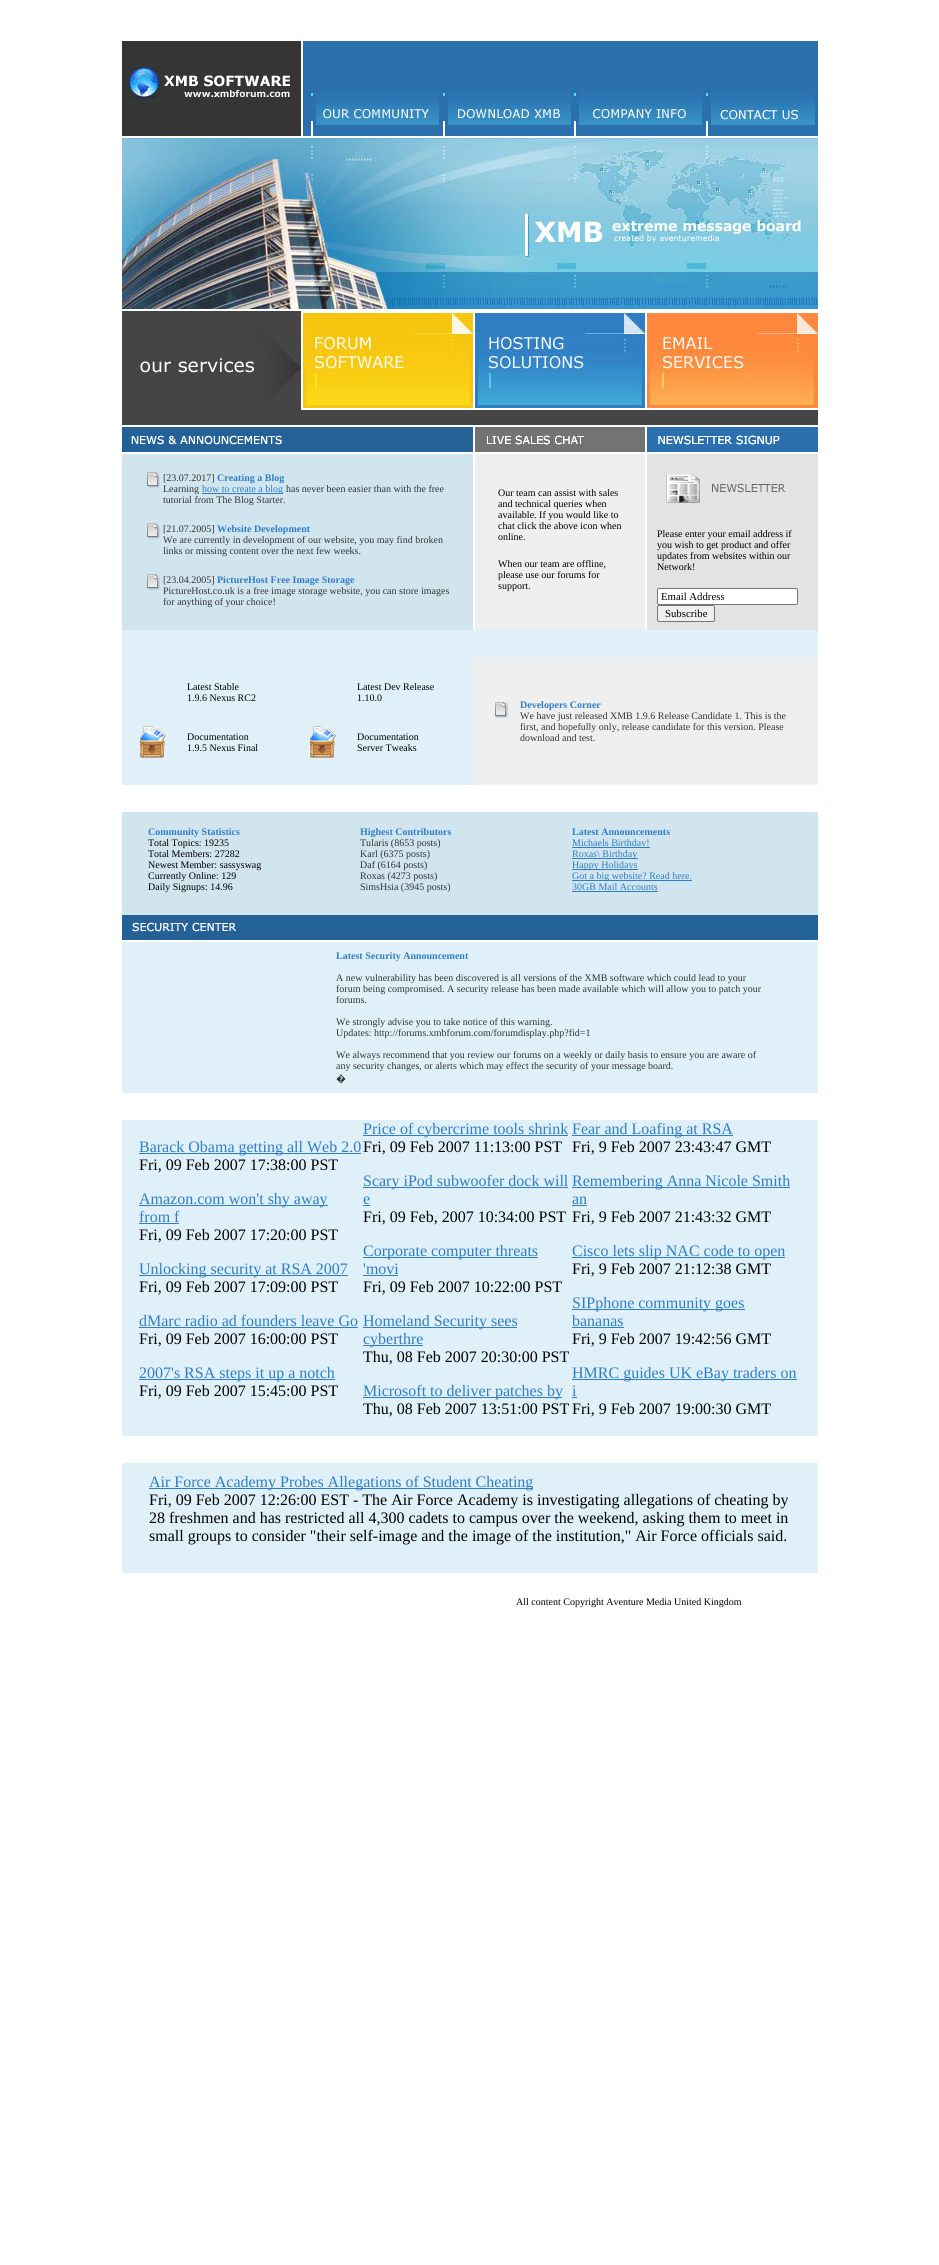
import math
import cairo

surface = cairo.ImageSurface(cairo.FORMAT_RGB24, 939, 2265)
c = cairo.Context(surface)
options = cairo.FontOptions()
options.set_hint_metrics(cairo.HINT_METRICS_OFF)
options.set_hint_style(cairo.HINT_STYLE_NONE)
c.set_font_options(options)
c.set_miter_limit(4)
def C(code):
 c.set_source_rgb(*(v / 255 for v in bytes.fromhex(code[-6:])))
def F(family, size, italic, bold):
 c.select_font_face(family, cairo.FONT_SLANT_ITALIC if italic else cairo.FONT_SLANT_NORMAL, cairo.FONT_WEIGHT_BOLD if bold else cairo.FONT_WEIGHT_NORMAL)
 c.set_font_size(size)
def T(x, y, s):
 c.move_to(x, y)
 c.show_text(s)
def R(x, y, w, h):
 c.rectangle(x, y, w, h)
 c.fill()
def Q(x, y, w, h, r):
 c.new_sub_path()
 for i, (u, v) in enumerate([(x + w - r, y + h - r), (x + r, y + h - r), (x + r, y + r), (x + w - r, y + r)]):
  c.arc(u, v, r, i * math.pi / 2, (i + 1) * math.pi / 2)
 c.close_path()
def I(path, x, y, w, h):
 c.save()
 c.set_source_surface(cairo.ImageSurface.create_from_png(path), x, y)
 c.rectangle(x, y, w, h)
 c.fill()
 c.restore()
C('ffffff')
c.paint()
I('1.png',122,41,179,95)
I('2.png',303,41,142,96)
I('3.png',445,41,131,95)
I('4.png',576,41,132,96)
I('5.png',708,41,110,95)
I('6.png',122,138,696,171)
I('7.png',122,311,179,114)
C('454545')
R(301,410,517,15)
I('8.png',301,311,174,99)
I('9.png',475,311,172,99)
I('10.png',647,311,171,99)
I('11.png',122,427,696,25)
C('d1e5ef')
R(122,454,351,176)
I('12.png',147,472,13,16)
F('Liberation Serif',10,0,0)
C('333333')
T(163,481,'[23.07.2017]')
F('Liberation Serif',10,0,1)
C('2f7ec4')
T(217,481,'Creating a Blog')
F('Liberation Serif',10,0,0)
C('333333')
T(163,492,'Learning')
C('2f7ec4')
R(202,493,81,1)
T(202,492,'how to create a blog')
C('333333')
T(286,492,'has never been easier than with the free')
T(163,503,'tutorial from The Blog Starter.')
I('12.png',147,523,13,16)
T(163,532,'[21.07.2005]')
F('Liberation Serif',10,0,1)
C('2f7ec4')
T(217,532,'Website Development')
F('Liberation Serif',10,0,0)
C('333333')
T(163,543,'We are currently in development of our website, you may find broken')
T(163,554,'links or missing content over the next few weeks.')
I('12.png',147,574,13,16)
T(163,583,'[23.04.2005]')
F('Liberation Serif',10,0,1)
C('2f7ec4')
T(217,583,'PictureHost Free Image Storage')
F('Liberation Serif',10,0,0)
C('333333')
T(163,594,'PictureHost.co.uk is a free image storage website, you can store images')
T(163,605,'for anything of your choice!')
C('efefef')
R(475,454,170,176)
C('000000')
T(498,496,'Our team can assist with sales')
T(498,507,'and technical queries when')
T(498,518,'available. If you would like to')
T(498,529,'chat click the above icon when')
T(498,540,'online.')
T(498,567,'When our team are offline,')
T(498,578,'please use our forums for')
T(498,589,'support.')
C('e3e3e3')
R(647,454,171,176)
I('13.png',666,474,120,29)
C('000000')
T(657,537,'Please enter your email address if')
T(657,548,'you wish to get product and offer')
T(657,559,'updates from websites within our')
T(657,570,'Network!')
C('ffffff')
Q(657.5,588.5,140,16,1.5)
c.fill_preserve()
C('767676')
c.set_line_width(1)
c.stroke()
F('Liberation Serif',10.75,0,0)
C('000000')
T(661,600,'Email Address')
C('efefef')
Q(657.5,605.5,57,16,1.5)
c.fill_preserve()
C('767676')
c.stroke()
C('000000')
T(665,617,'Subscribe')
C('dff0f9')
R(122,630,696,27)
R(122,657,351,128)
F('Liberation Serif',10,0,0)
C('000000')
T(187,690,'Latest Stable')
T(187,701,'1.9.6 Nexus RC2')
T(357,690,'Latest Dev Release')
T(357,701,'1.10.0')
I('14.png',139,726,28,32)
T(187,740,'Documentation')
T(187,751,'1.9.5 Nexus Final')
I('14.png',309,726,28,32)
T(357,740,'Documentation')
T(357,751,'Server Tweaks')
C('efefef')
R(473,657,345,128)
I('12.png',495,702,13,16)
F('Liberation Serif',10,0,1)
C('2f7ec4')
T(520,708,'Developers Corner')
F('Liberation Serif',10,0,0)
C('333333')
T(520,719,'We have just released XMB 1.9.6 Release Candidate 1. This is the')
T(520,730,'first, and hopefully only, release candidate for this version. Please')
T(520,741,'download and test.')
C('d1e5ef')
R(122,812,696,103)
F('Liberation Serif',10,0,1)
C('2f7ec4')
T(148,835,'Community Statistics')
F('Liberation Serif',10,0,0)
C('000000')
T(148,846,'Total Topics: 19235')
T(148,857,'Total Members: 27282')
T(148,868,'Newest Member: sassyswag')
T(148,879,'Currently Online: 129')
T(148,890,'Daily Signups: 14.96')
F('Liberation Serif',10,0,1)
C('2f7ec4')
T(360,835,'Highest Contributors')
F('Liberation Serif',10,0,0)
C('333333')
T(360,846,'Tularis (8653 posts)')
T(360,857,'Karl (6375 posts)')
T(360,868,'Daf (6164 posts)')
T(360,879,'Roxas (4273 posts)')
T(360,890,'SimsHsia (3945 posts)')
F('Liberation Serif',10,0,1)
C('2f7ec4')
T(572,835,'Latest Announcements')
R(572,847,78,1)
F('Liberation Serif',10,0,0)
T(572,846,'Michaels Birthday!')
R(572,858,66,1)
T(572,857,'Roxas\\ Birthday')
R(572,869,66,1)
T(572,868,'Happy Holidays')
R(572,880,120,1)
T(572,879,'Got a big website? Read here.')
T(572,890,'30GB Mail Accounts')
R(572,891,86,1)
I('15.png',122,915,696,27)
C('dff0f9')
R(122,942,696,151)
F('Liberation Serif',10,0,1)
C('2f7ec4')
T(336,959,'Latest Security Announcement')
F('Liberation Serif',10,0,0)
C('333333')
T(336,981,'A new vulnerability has been discovered is all versions of the XMB software which could lead to your')
T(336,992,'forum being compromised. A security release has been made available which will allow you to patch your')
T(336,1003,'forums.')
T(336,1025,'We strongly advise you to take notice of this warning.')
T(336,1036,'Updates: http://forums.xmbforum.com/forumdisplay.php?fid=1')
T(336,1058,'We always recommend that you review our forums on a weekly or daily basis to ensure you are aware of')
T(336,1069,'any security changes, or alerts which may effect the security of your message board.')
F('Noto Sans',10,0,0)
T(336,1082,'�')
C('dff0f9')
R(122,1120,696,316)
C('2f7ec4')
R(139,1153,222,1)
F('Liberation Serif',16,0,0)
T(139,1152,'Barack Obama getting all Web 2.0')
C('000000')
T(139,1170,'Fri, 09 Feb 2007 17:38:00 PST')
C('2f7ec4')
R(139,1205,189,1)
T(139,1204,'Amazon.com won\'t shy away')
T(139,1222,'from f')
R(139,1223,40,1)
C('000000')
T(139,1240,'Fri, 09 Feb 2007 17:20:00 PST')
C('2f7ec4')
R(139,1275,209,1)
T(139,1274,'Unlocking security at RSA 2007')
C('000000')
T(139,1292,'Fri, 09 Feb 2007 17:09:00 PST')
C('2f7ec4')
T(139,1326,'dMarc radio ad founders leave Go')
R(139,1327,219,1)
C('000000')
T(139,1344,'Fri, 09 Feb 2007 16:00:00 PST')
C('2f7ec4')
R(139,1379,196,1)
T(139,1378,'2007\'s RSA steps it up a notch')
C('000000')
T(139,1396,'Fri, 09 Feb 2007 15:45:00 PST')
C('2f7ec4')
R(363,1135,205,1)
T(363,1134,'Price of cybercrime tools shrink')
C('000000')
T(363,1152,'Fri, 09 Feb 2007 11:13:00 PST')
C('2f7ec4')
R(363,1187,205,1)
T(363,1186,'Scary iPod subwoofer dock will')
T(363,1204,'e')
R(363,1205,7,1)
C('000000')
T(363,1222,'Fri, 09 Feb, 2007 10:34:00 PST')
C('2f7ec4')
R(363,1257,175,1)
T(363,1256,'Corporate computer threats')
T(363,1274,'\'movi')
R(363,1275,35,1)
C('000000')
T(363,1292,'Fri, 09 Feb 2007 10:22:00 PST')
C('2f7ec4')
R(363,1327,154,1)
T(363,1326,'Homeland Security sees')
R(363,1345,60,1)
T(363,1344,'cyberthre')
C('000000')
T(363,1362,'Thu, 08 Feb 2007 20:30:00 PST')
C('2f7ec4')
R(363,1397,199,1)
T(363,1396,'Microsoft to deliver patches by')
C('000000')
T(363,1414,'Thu, 08 Feb 2007 13:51:00 PST')
C('2f7ec4')
R(572,1135,161,1)
T(572,1134,'Fear and Loafing at RSA')
C('000000')
T(572,1152,'Fri, 9 Feb 2007 23:43:47 GMT')
C('2f7ec4')
R(572,1187,218,1)
T(572,1186,'Remembering Anna Nicole Smith')
T(572,1204,'an')
R(572,1205,15,1)
C('000000')
T(572,1222,'Fri, 9 Feb 2007 21:43:32 GMT')
C('2f7ec4')
R(572,1257,213,1)
T(572,1256,'Cisco lets slip NAC code to open')
C('000000')
T(572,1274,'Fri, 9 Feb 2007 21:12:38 GMT')
C('2f7ec4')
R(572,1309,173,1)
T(572,1308,'SIPphone community goes')
T(572,1326,'bananas')
R(572,1327,52,1)
C('000000')
T(572,1344,'Fri, 9 Feb 2007 19:42:56 GMT')
C('2f7ec4')
R(572,1379,225,1)
T(572,1378,'HMRC guides UK eBay traders on')
T(572,1396,'i')
R(572,1397,5,1)
C('000000')
T(572,1414,'Fri, 9 Feb 2007 19:00:30 GMT')
C('dff0f9')
R(122,1463,696,110)
C('2f7ec4')
R(149,1488,384,1)
T(149,1487,'Air Force Academy Probes Allegations of Student Cheating')
C('000000')
T(149,1505,'Fri, 09 Feb 2007 12:26:00 EST - The Air Force Academy is investigating allegations of cheating by')
T(149,1523,'28 freshmen and has restricted all 4,300 cadets to campus over the weekend, asking them to meet in')
T(149,1541,'small groups to consider "their self-image and the image of the institution," Air Force officials said.')
F('Liberation Serif',10,0,0)
T(516,1605,'All content Copyright Aventure Media United Kingdom')
surface.write_to_png('o.png')
